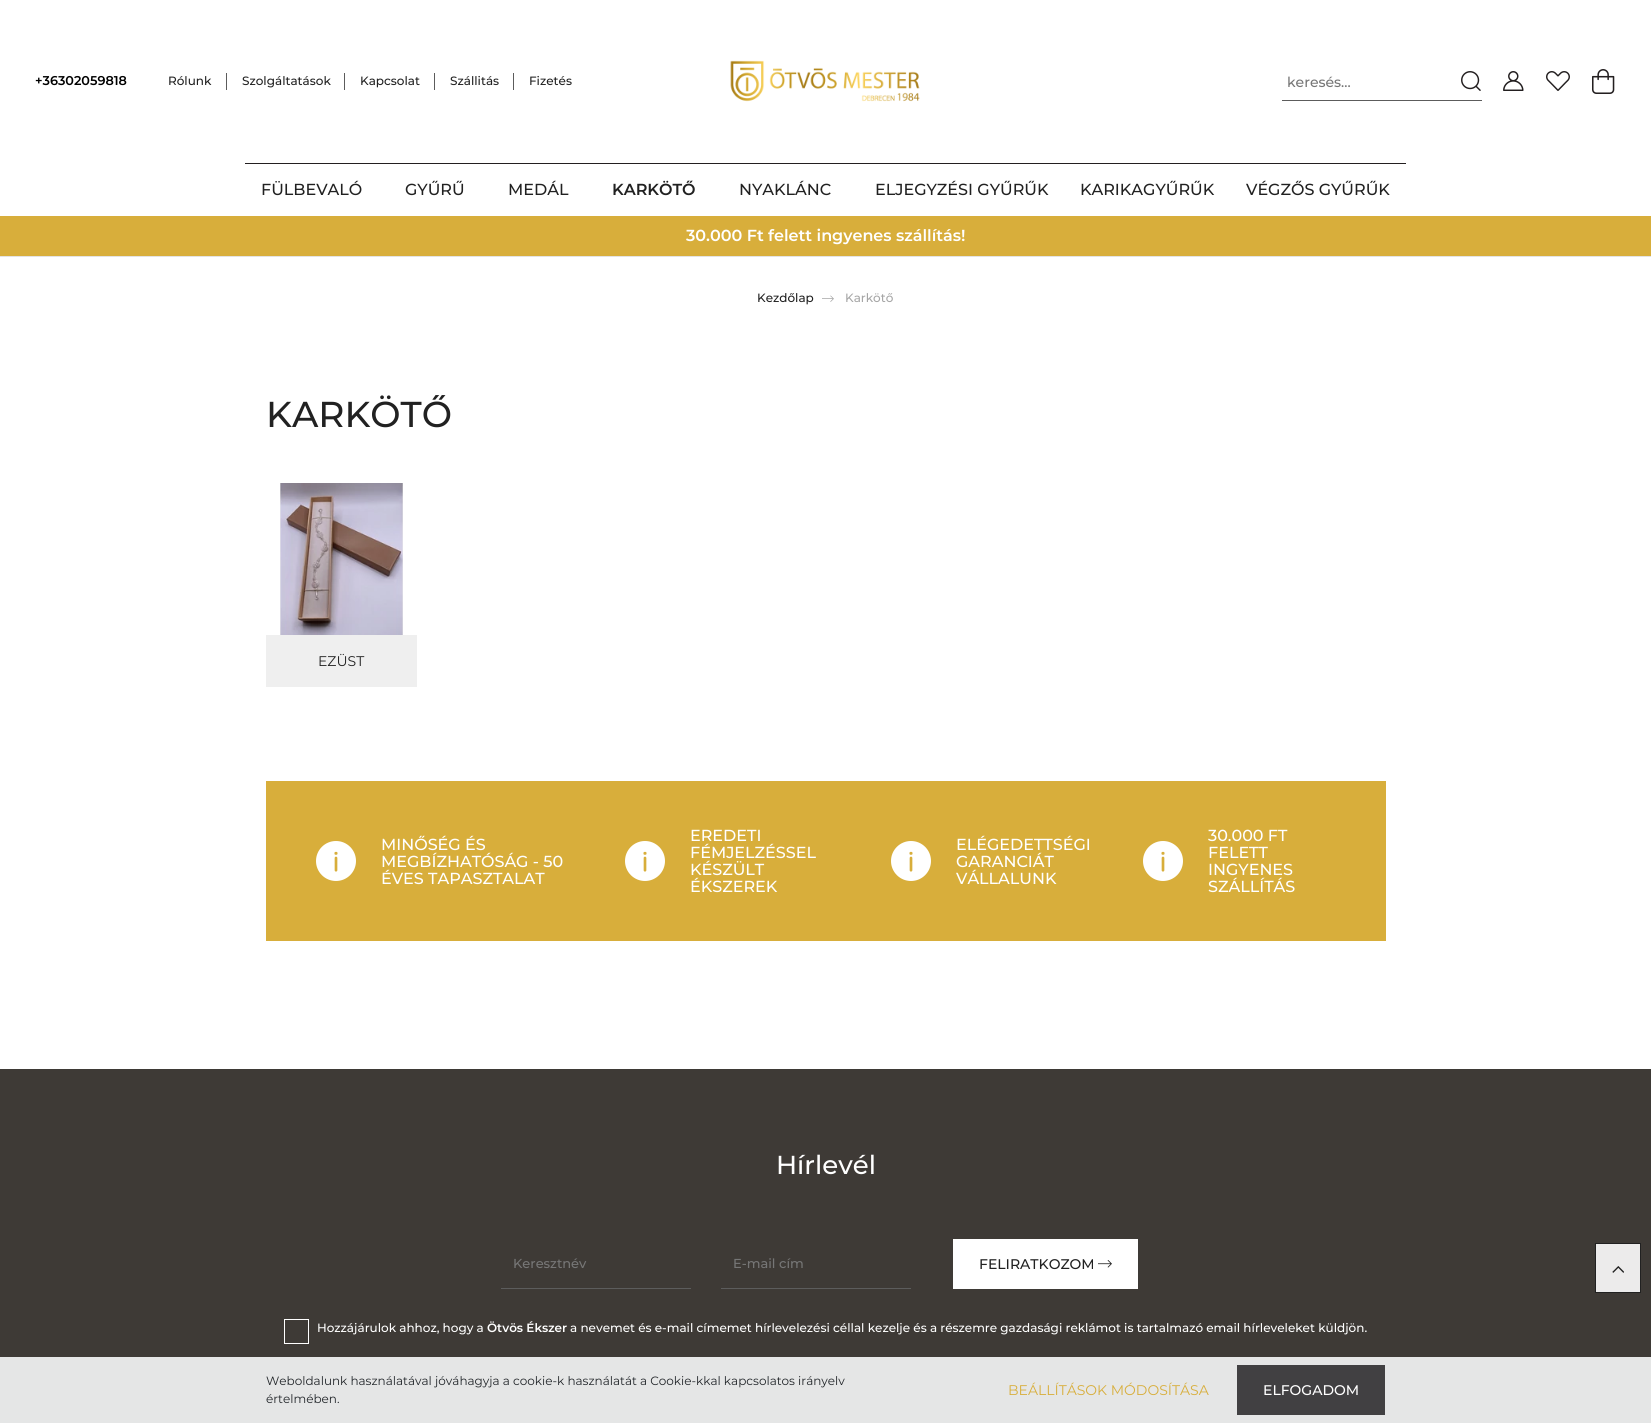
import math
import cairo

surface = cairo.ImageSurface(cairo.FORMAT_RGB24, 1651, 1423)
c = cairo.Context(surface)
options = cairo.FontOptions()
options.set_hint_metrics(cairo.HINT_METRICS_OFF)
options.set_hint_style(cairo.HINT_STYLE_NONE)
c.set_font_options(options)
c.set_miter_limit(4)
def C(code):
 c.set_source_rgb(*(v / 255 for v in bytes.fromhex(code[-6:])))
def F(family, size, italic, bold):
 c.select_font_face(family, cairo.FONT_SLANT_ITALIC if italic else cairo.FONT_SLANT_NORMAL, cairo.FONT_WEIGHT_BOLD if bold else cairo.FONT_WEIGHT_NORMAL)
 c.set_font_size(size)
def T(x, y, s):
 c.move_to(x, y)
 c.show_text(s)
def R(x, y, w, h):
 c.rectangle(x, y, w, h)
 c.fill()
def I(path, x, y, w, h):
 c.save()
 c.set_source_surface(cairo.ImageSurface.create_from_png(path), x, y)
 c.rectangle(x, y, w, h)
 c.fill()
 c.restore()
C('ffffff')
c.paint()
F('Montserrat SemiBold',12.75,0,0)
C('000000')
T(35,85,'+36302059818')
F('Montserrat Medium',12,0,0)
C('212121')
T(168,85,'Rólunk')
C('5c5c5c')
R(226,73,1,17)
C('212121')
T(242,85,'Szolgáltatások')
C('5c5c5c')
R(344,73,1,17)
C('212121')
T(360,85,'Kapcsolat')
C('5c5c5c')
R(434,73,1,17)
C('212121')
T(450,85,'Szállitás')
C('5c5c5c')
R(513,73,1,17)
C('212121')
T(529,85,'Fizetés')
I('1.png',730,60,190,42)
C('5c5c5c')
R(1282,100,200,1)
F('Montserrat Medium',14,0,0)
C('767676')
T(1287,87,'keresés...')
I('2.png',1461,71,20,20)
I('3.png',1503,71,21,20)
I('4.png',1546,71,24,20)
I('5.png',1592,69,23,25)
C('231f20')
R(245,163,1161,1)
F('Montserrat Medium',16,0,0)
C('212121')
T(261,195,'FÜLBEVALÓ')
T(405,195,'GYŰRŰ')
T(508,195,'MEDÁL')
F('Montserrat SemiBold',16,0,0)
T(612,195,'KARKÖTŐ')
F('Montserrat Medium',16,0,0)
T(739,195,'NYAKLÁNC')
T(875,195,'ELJEGYZÉSI GYŰRŰK')
T(1080,195,'KARIKAGYŰRŰK')
T(1246,195,'VÉGZŐS GYŰRŰK')
C('e3e3e3')
R(0,256,1651,1)
C('d8ae3b')
R(0,216,1651,40)
F('Montserrat SemiBold',16,0,0)
C('ffffff')
T(686,241,'30.000 Ft felett ingyenes szállítás!')
F('Montserrat Medium',12,0,0)
C('212121')
T(757,302,'Kezdőlap')
I('6.png',822,295,12,7)
C('a6a6a6')
T(845,302,'Karkötő')
F('Montserrat Medium',36,0,0)
C('212121')
T(266,427,'KARKÖTŐ')
I('7.png',280,483,123,152)
C('efefef')
R(266,635,151,52)
F('Montserrat',14,0,0)
C('212121')
T(318,666,'EZÜST')
C('d8ae3b')
R(266,781,1120,160)
I('8.png',316,841,40,40)
F('Montserrat Medium',16,0,0)
C('ffffff')
T(381,850,'MINŐSÉG ÉS')
T(381,867,'MEGBÍZHATÓSÁG - 50')
T(381,884,'ÉVES TAPASZTALAT')
I('8.png',625,841,40,40)
T(690,841,'EREDETI')
T(690,858,'FÉMJELZÉSSEL')
T(690,875,'KÉSZÜLT')
T(690,892,'ÉKSZEREK')
I('8.png',891,841,40,40)
T(956,850,'ELÉGEDETTSÉGI')
T(956,867,'GARANCIÁT')
T(956,884,'VÁLLALUNK')
I('8.png',1143,841,40,40)
T(1208,841,'30.000 FT')
T(1208,858,'FELETT')
T(1208,875,'INGYENES')
T(1208,892,'SZÁLLÍTÁS')
C('3e3a36')
R(0,1069,1651,288)
F('Montserrat Medium',26,0,0)
C('ffffff')
T(776,1174,'Hírlevél')
C('5c5c5c')
R(501,1288,190,1)
F('Montserrat Medium',13,0,0)
C('767676')
T(513,1268,'Keresztnév')
C('5c5c5c')
R(721,1288,190,1)
C('767676')
T(733,1268,'E-mail cím')
C('ffffff')
R(953,1239,185,50)
F('Montserrat Medium',14,0,0)
C('212121')
T(979,1269,'FELIRATKOZOM')
I('9.png',1098,1260,14,8)
c.rectangle(284.5,1319.5,24,24)
C('ffffff')
c.set_line_width(1)
c.stroke()
F('Montserrat Medium',12,0,0)
T(317,1332,'Hozzájárulok ahhoz, hogy a')
F('Montserrat SemiBold',12,0,0)
T(487,1332,'Ötvös Ékszer')
F('Montserrat Medium',12,0,0)
T(570,1332,'a nevemet és e-mail címemet hírlevelezési céllal kezelje és a részemre gazdasági reklámot is tartalmazó email hírleveleket küldjön.')
C('ecebeb')
c.rectangle(1595.5,1243.5,45,49)
c.fill_preserve()
C('212121')
c.stroke()
I('10.png',1612,1266,12,7)
C('e5e6e6')
R(0,1357,1651,66)
F('Montserrat',12,0,0)
C('212529')
T(266,1385,'Weboldalunk használatával jóváhagyja a cookie-k használatát a Cookie-kkal kapcsolatos irányelv')
T(266,1403,'értelmében.')
F('Montserrat',14,0,0)
C('d8ae3b')
T(1008,1395,'BEÁLLÍTÁSOK MÓDOSÍTÁSA')
C('414042')
R(1237,1365,148,50)
F('Montserrat Medium',14,0,0)
C('ffffff')
T(1263,1395,'ELFOGADOM')
surface.write_to_png('o.png')
